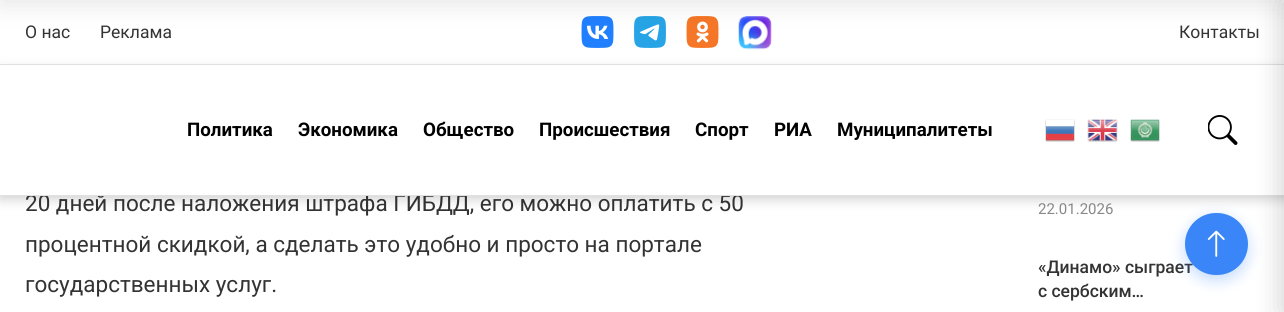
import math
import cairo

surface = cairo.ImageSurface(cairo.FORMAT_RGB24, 1284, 312)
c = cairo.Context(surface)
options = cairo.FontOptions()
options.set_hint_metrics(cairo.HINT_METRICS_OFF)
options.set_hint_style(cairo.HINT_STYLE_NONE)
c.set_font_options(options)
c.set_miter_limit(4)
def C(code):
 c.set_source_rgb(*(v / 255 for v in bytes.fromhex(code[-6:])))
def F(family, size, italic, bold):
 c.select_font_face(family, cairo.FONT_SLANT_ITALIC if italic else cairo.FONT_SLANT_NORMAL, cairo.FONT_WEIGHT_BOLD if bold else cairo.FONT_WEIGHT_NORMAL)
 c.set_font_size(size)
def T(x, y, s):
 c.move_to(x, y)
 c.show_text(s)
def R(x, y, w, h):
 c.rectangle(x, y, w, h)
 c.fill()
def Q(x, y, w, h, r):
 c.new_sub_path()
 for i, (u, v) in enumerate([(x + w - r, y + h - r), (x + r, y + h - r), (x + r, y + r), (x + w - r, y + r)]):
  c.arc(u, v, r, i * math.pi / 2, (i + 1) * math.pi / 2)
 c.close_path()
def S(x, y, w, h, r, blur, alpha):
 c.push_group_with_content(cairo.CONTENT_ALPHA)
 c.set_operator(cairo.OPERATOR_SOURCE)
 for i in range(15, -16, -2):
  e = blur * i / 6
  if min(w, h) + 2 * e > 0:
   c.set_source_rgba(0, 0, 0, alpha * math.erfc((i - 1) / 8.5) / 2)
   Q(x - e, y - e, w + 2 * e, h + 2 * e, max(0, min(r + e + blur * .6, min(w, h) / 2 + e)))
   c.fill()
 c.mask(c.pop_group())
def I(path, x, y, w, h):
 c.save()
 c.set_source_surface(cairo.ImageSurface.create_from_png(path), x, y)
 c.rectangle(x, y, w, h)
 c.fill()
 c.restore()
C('ffffff')
c.paint()
C('000000')
S(0,3,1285,196,0,6,.1)
F('Roboto',22.5,0,0)
C('333333')
T(25,211,'20 дней после наложения штрафа ГИБДД, его можно оплатить с 50')
C('ffffff')
R(0,0,1284,195)
I('1.png',581,16,33,32)
I('2.png',634,16,32,32)
I('3.png',686,16,33,32)
I('4.png',738,16,34,34)
C('000000')
S(0,-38,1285,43,0,12.5,.1)
C('e5e5e5')
R(0,64,1284,1)
F('Roboto',17.5,0,0)
C('333333')
T(25,38,'О нас')
T(100,38,'Реклама')
T(1179,38,'Контакты')
c.save()
c.set_fill_rule(cairo.FILL_RULE_EVEN_ODD)
c.new_path()
c.move_to(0,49)
c.line_to(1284,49)
c.line_to(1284,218)
c.line_to(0,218)
c.close_path()
c.move_to(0,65)
c.line_to(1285,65)
c.line_to(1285,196)
c.line_to(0,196)
c.close_path()
c.clip()
C('000000')
S(0,68,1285,131,0,6,.1)
c.restore()
C('e0e0e0')
R(0,195,1284,1)
C('000000')
S(1279,0,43,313,0,12.5,.15)
F('Roboto',18.75,0,1)
C('000000')
T(187,136,'Политика')
T(298,136,'Экономика')
T(423,136,'Общество')
T(539,136,'Происшествия')
T(695,136,'Спорт')
T(774,136,'РИА')
T(837,136,'Муниципалитеты')
I('5.png',1045,119,30,23)
I('6.png',1087,119,31,23)
I('7.png',1130,119,30,23)
I('8.png',1208,115,30,30)
F('Roboto',22.5,0,0)
C('333333')
T(25,252,'процентной скидкой, а сделать это удобно и просто на портале')
T(25,292,'государственных услуг.')
F('Roboto',15,0,0)
C('888888')
T(1038,214,'22.01.2026')
F('Roboto Medium',17.5,0,0)
C('333333')
T(1038,273,'«Динамо» сыграет')
T(1038,297,'с сербским…')
C('3a86f8')
S(1185,218,63,62,31,7.5,.3)
C('3a86f8')
Q(1185,213,63,62,31)
c.fill()
I('9.png',1207,230,18,27)
surface.write_to_png('o.png')
